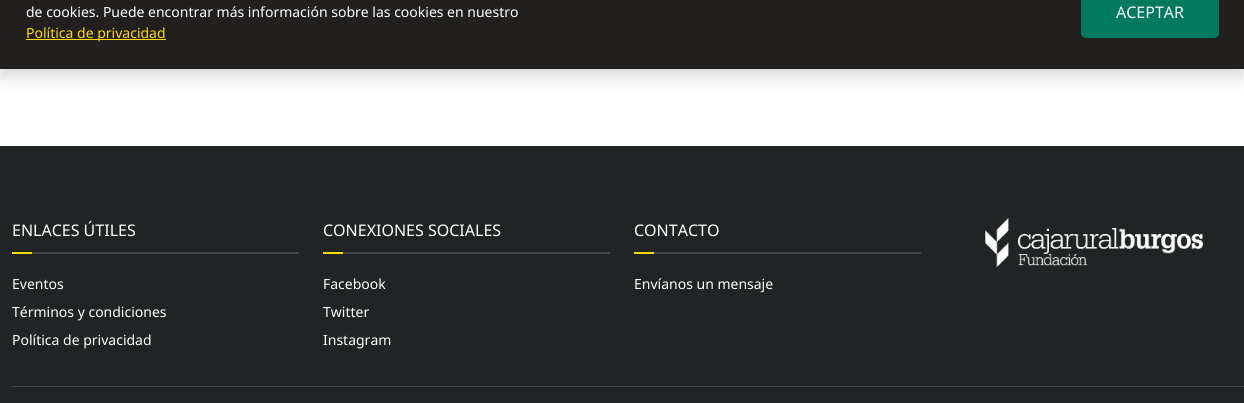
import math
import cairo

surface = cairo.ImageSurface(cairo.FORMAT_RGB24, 1244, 403)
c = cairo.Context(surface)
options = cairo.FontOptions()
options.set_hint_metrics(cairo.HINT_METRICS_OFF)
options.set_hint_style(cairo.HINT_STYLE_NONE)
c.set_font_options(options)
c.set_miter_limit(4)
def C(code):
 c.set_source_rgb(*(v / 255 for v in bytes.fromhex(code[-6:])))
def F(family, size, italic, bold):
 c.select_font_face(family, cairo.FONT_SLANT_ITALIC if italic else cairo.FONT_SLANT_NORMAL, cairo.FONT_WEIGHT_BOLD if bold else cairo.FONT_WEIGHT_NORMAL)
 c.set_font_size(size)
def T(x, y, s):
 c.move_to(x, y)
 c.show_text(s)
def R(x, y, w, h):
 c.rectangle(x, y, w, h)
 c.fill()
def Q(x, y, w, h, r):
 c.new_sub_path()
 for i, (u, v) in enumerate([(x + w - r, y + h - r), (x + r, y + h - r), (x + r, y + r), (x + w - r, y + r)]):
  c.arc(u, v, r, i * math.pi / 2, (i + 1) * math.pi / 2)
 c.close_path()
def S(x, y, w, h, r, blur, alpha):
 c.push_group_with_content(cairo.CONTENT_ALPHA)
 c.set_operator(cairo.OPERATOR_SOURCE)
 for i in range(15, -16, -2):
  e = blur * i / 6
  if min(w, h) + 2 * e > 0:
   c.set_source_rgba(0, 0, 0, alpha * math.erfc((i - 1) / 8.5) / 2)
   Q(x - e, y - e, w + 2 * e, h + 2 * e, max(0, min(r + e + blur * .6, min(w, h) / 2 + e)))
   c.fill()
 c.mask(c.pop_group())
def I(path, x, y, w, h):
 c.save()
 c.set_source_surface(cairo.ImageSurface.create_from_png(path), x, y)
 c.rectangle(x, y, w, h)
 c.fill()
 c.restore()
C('ffffff')
c.paint()
C('000000')
S(0,8,1244,69,0,8,.15)
C('221f1f')
R(0,0,1244,69)
F('Noto Sans',14,0,0)
C('ffffff')
T(26,17,'de cookies. Puede encontrar más información sobre las cookies en nuestro')
C('ffda00')
R(26,39,140,1)
T(26,38,'Política de privacidad')
C('007a5e')
Q(1081,-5,138,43,5)
c.fill()
F('Noto Sans',16,0,0)
C('ffffff')
T(1116,18,'ACEPTAR')
C('212425')
R(0,146,1244,257)
C('424546')
R(32,252,267,2)
C('ffffff')
T(12,236,'ENLACES ÚTILES')
C('ffda00')
R(12,252,20,2)
F('Noto Sans',14,0,0)
C('ffffff')
T(12,289,'Eventos')
T(12,317,'Términos y condiciones')
T(12,345,'Política de privacidad')
C('424546')
R(343,252,267,2)
F('Noto Sans',16,0,0)
C('ffffff')
T(323,236,'CONEXIONES SOCIALES')
C('ffda00')
R(323,252,20,2)
F('Noto Sans',14,0,0)
C('ffffff')
T(323,289,'Facebook')
T(323,317,'Twitter')
T(323,345,'Instagram')
C('424546')
R(654,252,267,2)
F('Noto Sans',16,0,0)
C('ffffff')
T(634,236,'CONTACTO')
C('ffda00')
R(634,252,20,2)
F('Noto Sans',14,0,0)
C('ffffff')
T(634,289,'Envíanos un mensaje')
I('1.png',985,218,218,49)
C('424546')
R(12,386,1232,1)
surface.write_to_png('o.png')
